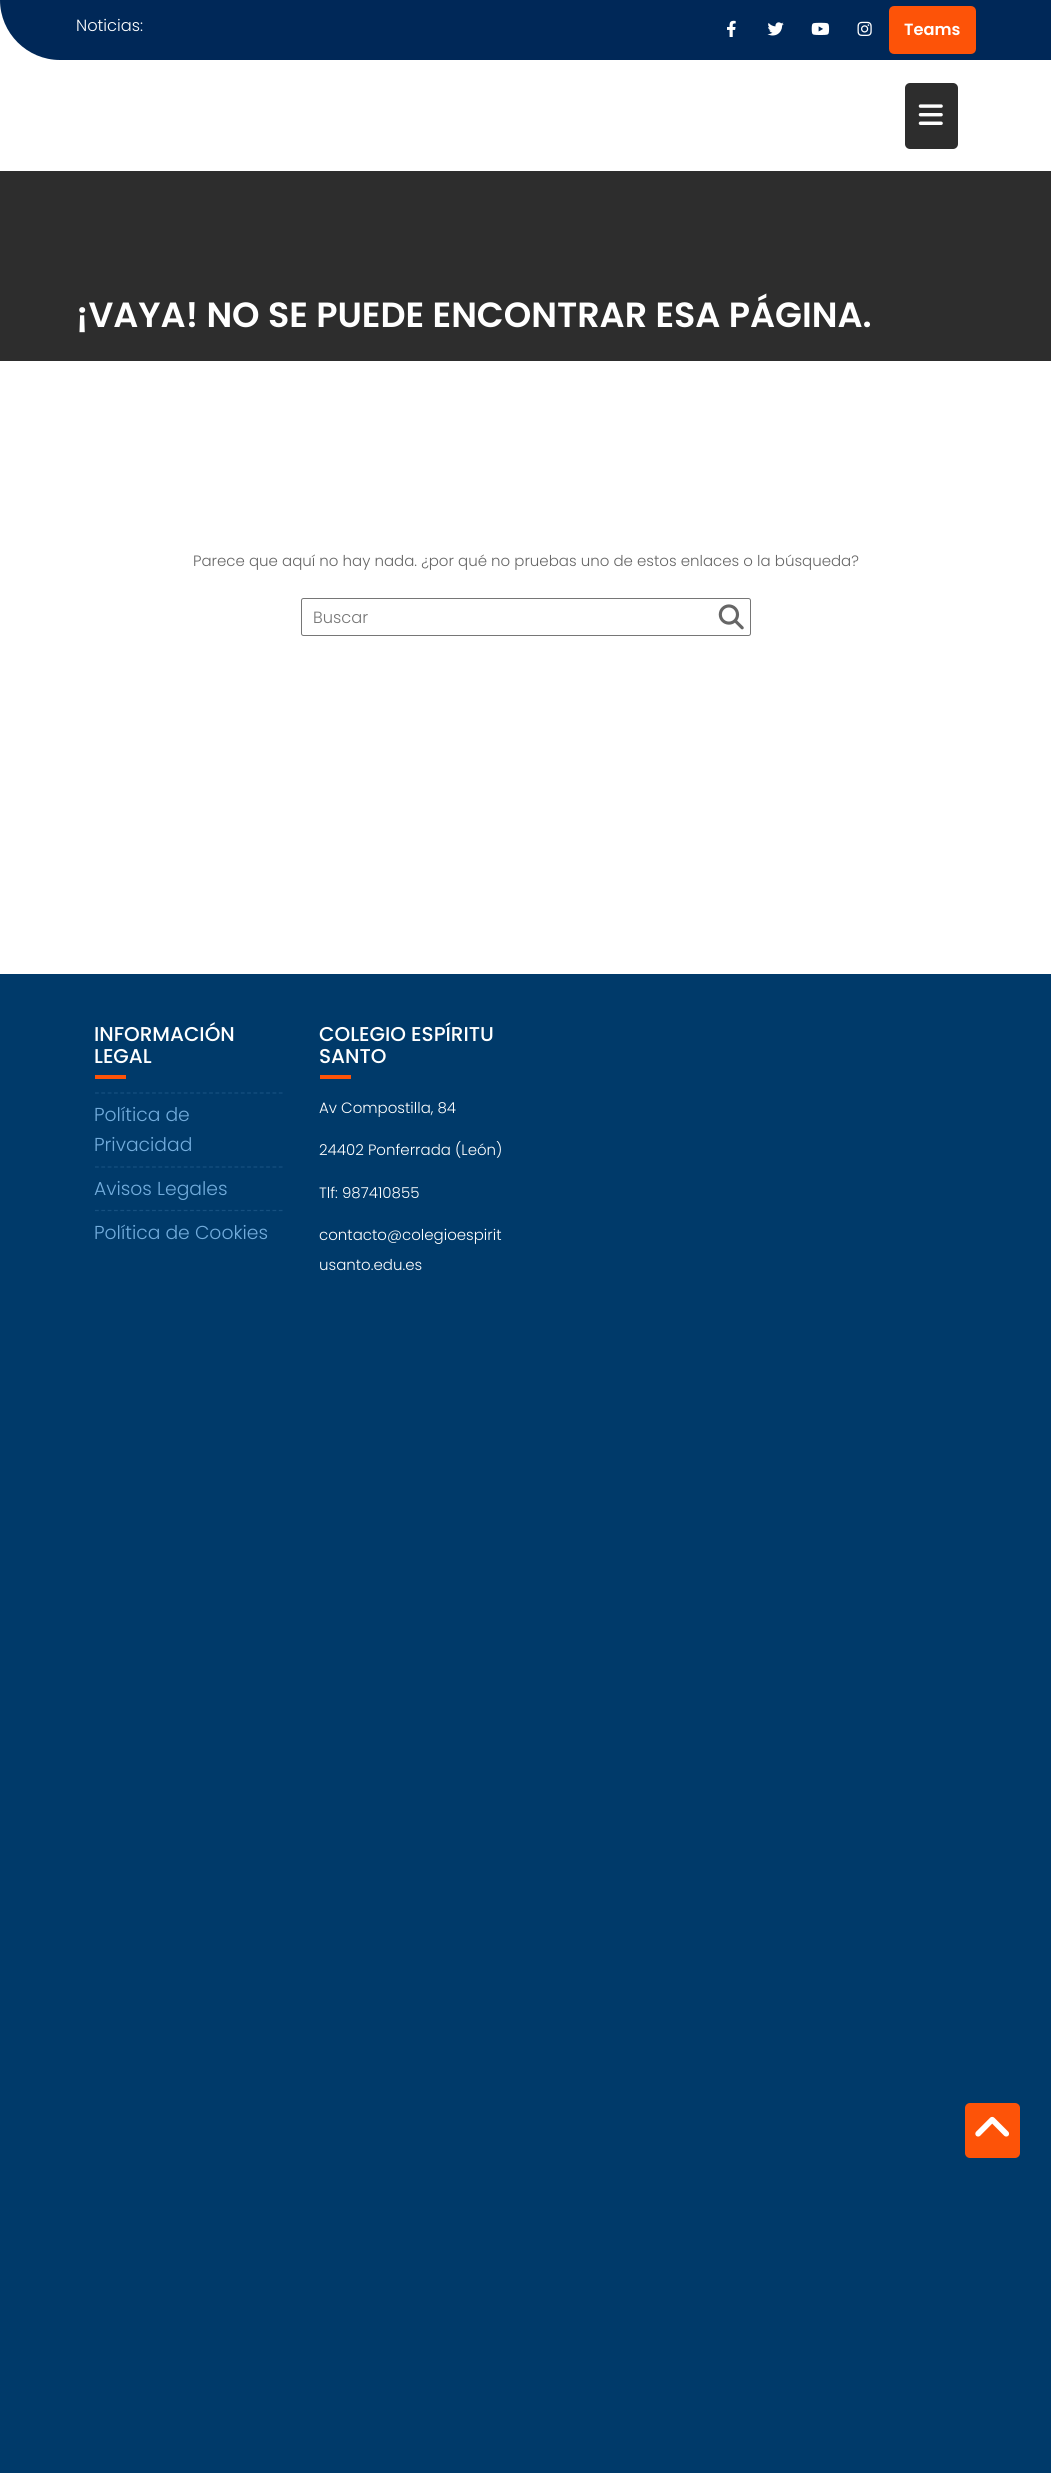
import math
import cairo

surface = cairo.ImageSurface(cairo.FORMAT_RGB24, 1051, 2473)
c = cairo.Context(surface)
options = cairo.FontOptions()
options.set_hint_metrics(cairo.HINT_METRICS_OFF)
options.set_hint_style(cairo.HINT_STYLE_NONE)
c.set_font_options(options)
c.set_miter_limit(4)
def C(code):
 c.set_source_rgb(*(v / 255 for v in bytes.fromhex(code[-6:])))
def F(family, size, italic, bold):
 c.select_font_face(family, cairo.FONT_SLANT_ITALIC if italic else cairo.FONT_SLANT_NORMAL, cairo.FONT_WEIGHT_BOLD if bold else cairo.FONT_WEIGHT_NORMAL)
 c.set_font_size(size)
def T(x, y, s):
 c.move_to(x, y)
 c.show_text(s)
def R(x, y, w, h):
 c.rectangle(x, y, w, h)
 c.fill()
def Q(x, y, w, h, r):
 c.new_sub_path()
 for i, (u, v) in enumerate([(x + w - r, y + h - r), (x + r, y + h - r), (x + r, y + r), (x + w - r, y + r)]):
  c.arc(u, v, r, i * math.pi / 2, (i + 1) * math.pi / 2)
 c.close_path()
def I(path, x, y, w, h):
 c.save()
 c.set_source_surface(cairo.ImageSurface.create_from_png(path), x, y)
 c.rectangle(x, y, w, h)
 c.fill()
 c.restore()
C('ffffff')
c.paint()
C('002858')
c.new_path()
c.move_to(0,0)
c.line_to(1051,0)
c.line_to(1051,60)
c.line_to(60,60)
c.curve_to(27,60,0,33,0,0)
c.close_path()
c.fill()
F('Poppins Light',16.25,0,0)
C('ffffff')
T(76,31,'Noticias:')
I('1.png',727,20,9,17)
I('2.png',767,22,17,14)
I('3.png',811,22,19,13)
I('4.png',857,21,15,15)
C('fd5308')
Q(890.5,7.5,84,45,3.5)
c.fill_preserve()
c.set_line_width(3)
c.stroke()
F('Poppins SemiBold',16.25,0,0)
C('ffffff')
T(904,35,'Teams')
C('2d2d2d')
Q(905,83,53,66,5)
c.fill()
I('5.png',918,104,25,21)
R(0,171,1051,190)
F('Poppins SemiBold',35,0,0)
C('ffffff')
T(76,327,'¡VAYA! NO SE PUEDE ENCONTRAR ESA PÁGINA.')
F('Poppins Light',15,0,0)
C('666666')
T(193,566,'Parece que aquí no hay nada. ¿por qué no pruebas uno de estos enlaces o la búsqueda?')
Q(301.5,598.5,449,37,2)
C('767676')
c.set_line_width(1)
c.stroke()
F('Poppins Light',16.25,0,0)
C('757575')
T(313,623,'Buscar')
I('6.png',718,604,26,26)
C('003a6a')
R(0,974,1051,1499)
F('Poppins Medium',20,0,0)
C('ffffff')
T(94,1041,'INFORMACIÓN')
T(94,1063,'LEGAL')
C('fd5308')
R(95,1075,31,4)
c.new_path()
c.move_to(95,1093)
c.line_to(282.5,1093)
C('165080')
c.set_line_width(1.2)
c.set_dash([3.75,2.59])
c.stroke()
F('Poppins Light',18.75,0,0)
C('72acdc')
T(94,1121,'Política de')
T(94,1151,'Privacidad')
c.new_path()
c.move_to(95,1167)
c.line_to(282.5,1167)
C('165080')
c.stroke()
C('72acdc')
T(94,1195,'Avisos Legales')
c.new_path()
c.move_to(95,1210.5)
c.line_to(282.5,1210.5)
C('165080')
c.stroke()
C('72acdc')
T(94,1239,'Política de Cookies')
F('Poppins Medium',20,0,0)
C('ffffff')
T(319,1041,'COLEGIO ESPÍRITU')
T(319,1063,'SANTO')
C('fd5308')
R(320,1075,31,4)
F('Poppins Light',15,0,0)
C('ffffff')
T(319,1113,'Av Compostilla, 84')
T(319,1155,'24402 Ponferrada (León)')
T(319,1198,'Tlf: 987410855')
T(319,1240,'contacto@colegioespirit')
T(319,1270,'usanto.edu.es')
C('fd5308')
Q(965,2103,55,55,5)
c.fill()
I('7.png',975,2116,34,21)
surface.write_to_png('o.png')
